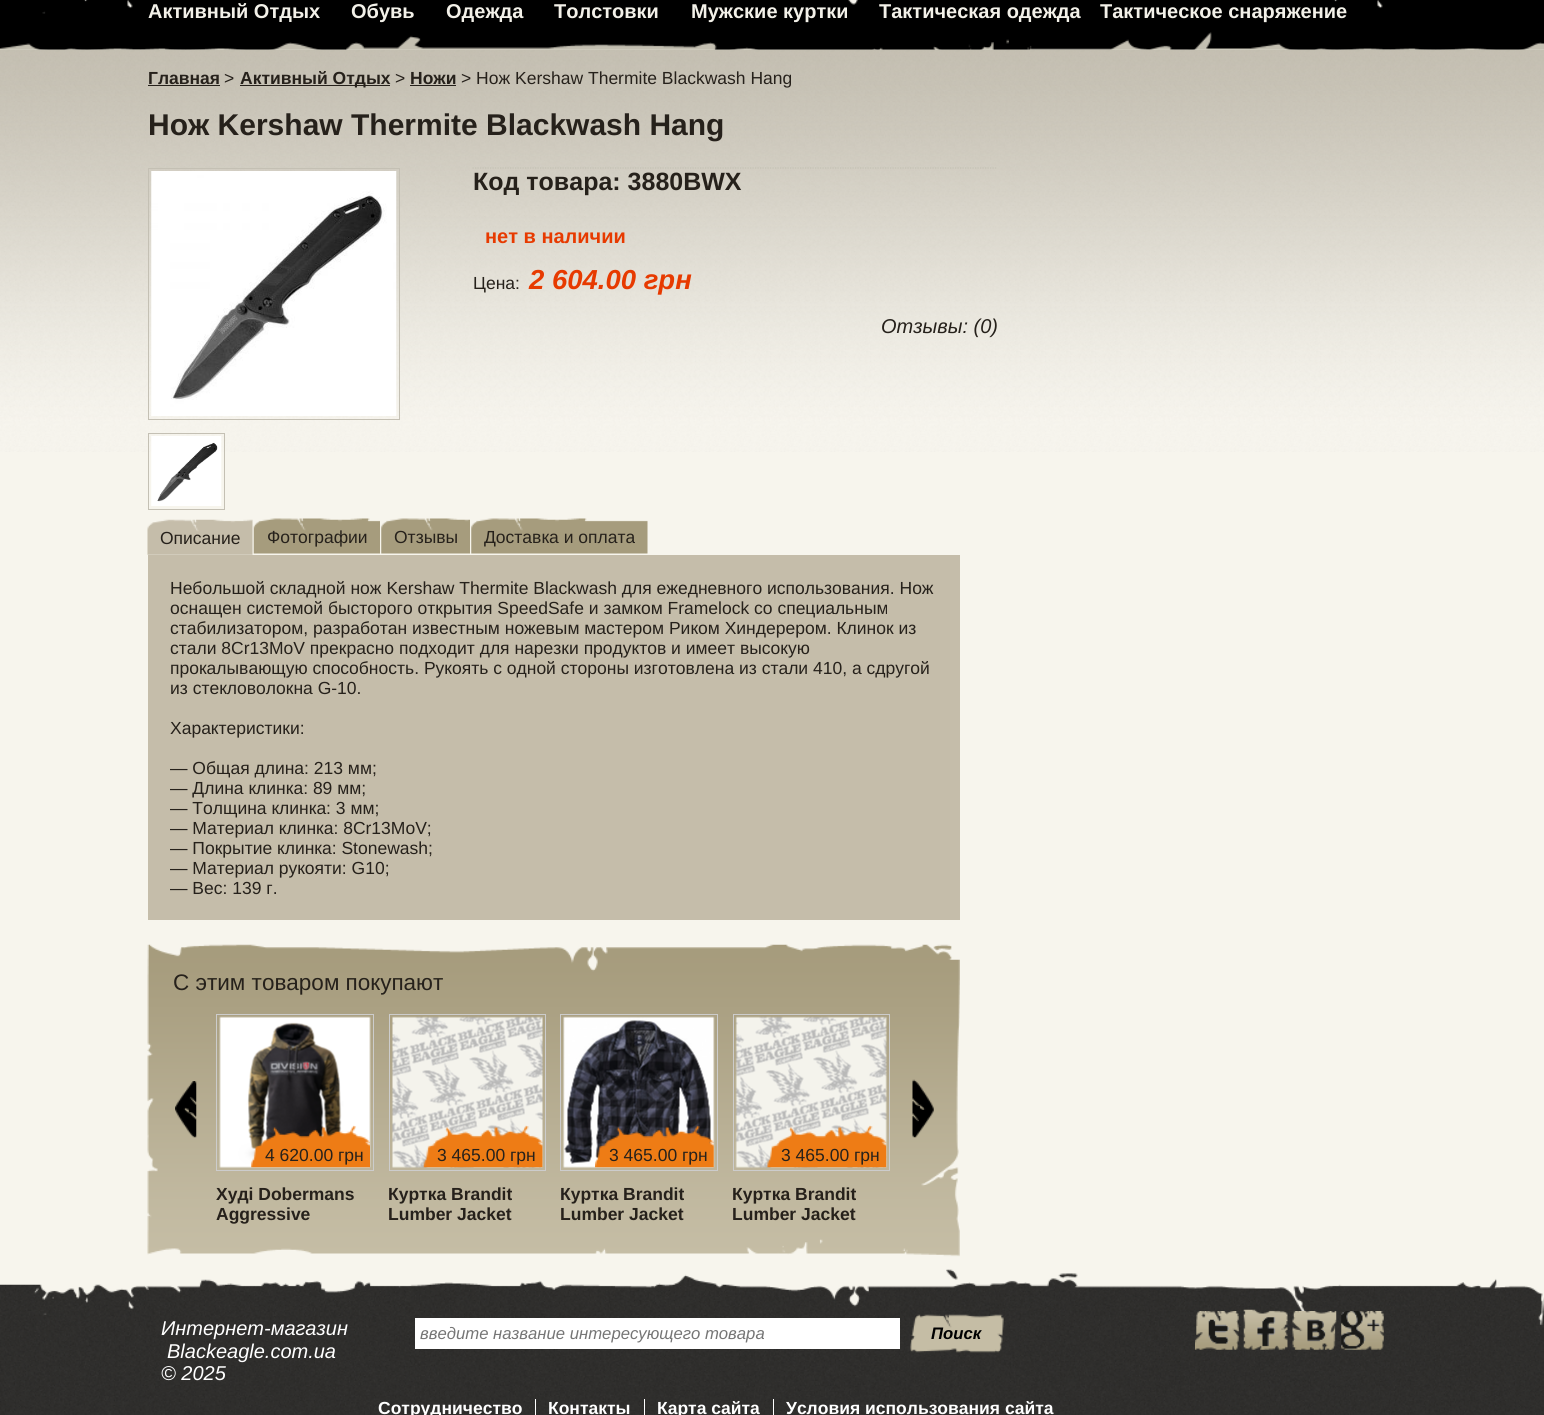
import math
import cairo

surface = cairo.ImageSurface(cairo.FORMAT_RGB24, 1544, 1415)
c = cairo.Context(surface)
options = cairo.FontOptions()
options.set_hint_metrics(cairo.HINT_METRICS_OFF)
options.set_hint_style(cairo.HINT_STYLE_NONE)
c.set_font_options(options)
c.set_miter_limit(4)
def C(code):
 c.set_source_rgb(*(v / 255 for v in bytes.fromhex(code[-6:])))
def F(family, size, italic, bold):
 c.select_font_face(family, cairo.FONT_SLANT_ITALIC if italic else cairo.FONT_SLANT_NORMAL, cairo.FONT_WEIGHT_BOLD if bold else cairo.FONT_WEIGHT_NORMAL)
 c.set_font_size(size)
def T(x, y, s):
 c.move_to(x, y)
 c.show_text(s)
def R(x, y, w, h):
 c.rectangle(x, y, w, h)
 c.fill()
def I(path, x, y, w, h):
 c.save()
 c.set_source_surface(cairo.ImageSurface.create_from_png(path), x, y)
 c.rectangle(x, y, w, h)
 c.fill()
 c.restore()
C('f7f5ed')
c.paint()
I('1.png',0,0,1544,50)
F('Liberation Sans',20,0,1)
C('f3f1e9')
T(148,18,'Активный Отдых')
T(351,18,'Обувь')
T(446,18,'Одежда')
T(554,18,'Толстовки')
T(691,18,'Мужские куртки')
T(879,18,'Тактическая одежда')
T(1100,18,'Тактическое снаряжение')
I('2.png',0,49,1544,403)
F('Liberation Sans',17.5,0,1)
C('26211b')
T(148,84,'Главная')
R(148,85,72,1)
F('Liberation Sans',17.5,0,0)
T(224,84,'>')
R(240,85,150,1)
F('Liberation Sans',17.5,0,1)
T(240,84,'Активный Отдых')
F('Liberation Sans',17.5,0,0)
T(395,84,'>')
F('Liberation Sans',17.5,0,1)
T(410,84,'Ножи')
R(410,85,46,1)
F('Liberation Sans',17.5,0,0)
T(461,84,'> Нож Kershaw Thermite Blackwash Hang')
F('Liberation Sans',30,0,1)
T(148,135,'Нож Kershaw Thermite Blackwash Hang')
c.rectangle(148.5,168.5,251,251)
C('c4c0b4')
c.set_line_width(1)
c.stroke()
I('3.png',151,171,246,245)
c.rectangle(148.5,433.5,76,76)
c.stroke()
I('4.png',151,436,71,70)
c.new_path()
c.move_to(472.5,168)
c.line_to(997.5,168)
c.set_line_width(1.2)
c.set_dash([1.25,1.25])
c.stroke()
F('Liberation Sans',25,0,1)
C('26211b')
T(473,190,'Код товара: 3880BWX')
F('Liberation Sans',20,0,1)
C('e73a00')
T(485,243,'нет в наличии')
F('Liberation Sans',17.5,0,0)
C('26211b')
T(473,289,'Цена:')
F('Liberation Sans',27.5,1,1)
C('e73a00')
T(529,289,'2 604.00 грн')
F('Liberation Sans',20,1,0)
C('26211b')
T(881,333,'Отзывы: (0)')
I('5.png',147,519,106,36)
F('Liberation Sans',17.5,0,0)
T(160,544,'Описание')
I('6.png',253,518,127,36)
T(267,543,'Фотографии')
I('7.png',381,518,89,36)
T(394,543,'Отзывы')
I('8.png',471,518,177,36)
T(484,543,'Доставка и оплата')
C('c5bdaa')
R(148,555,812,365)
C('26211b')
T(170,594,'Небольшой складной нож Kershaw Thermite Blackwash для ежедневного использования. Нож')
T(170,614,'оснащен системой бысторого открытия SpeedSafe и замком Framelock со специальным')
T(170,634,'стабилизатором, разработан известным ножевым мастером Риком Хиндерером. Клинок из')
T(170,654,'стали 8Cr13MoV прекрасно подходит для нарезки продуктов и имеет высокую')
T(170,674,'прокалывающую способность. Рукоять с одной стороны изготовлена из стали 410, а сдругой')
T(170,694,'из стекловолокна G-10.')
T(170,734,'Характеристики:')
T(170,774,'— Общая длина: 213 мм;')
T(170,794,'— Длина клинка: 89 мм;')
T(170,814,'— Толщина клинка: 3 мм;')
T(170,834,'— Материал клинка: 8Cr13MoV;')
T(170,854,'— Покрытие клинка: Stonewash;')
T(170,874,'— Материал рукояти: G10;')
T(170,894,'— Вес: 139 г.')
I('9.png',147,944,813,313)
F('Liberation Sans',22.5,0,0)
T(173,990,'С этим товаром покупают')
I('10.png',175,1081,22,57)
I('11.png',912,1079,22,59)
c.rectangle(216.5,1014.5,157,156)
C('cccccc')
c.set_line_width(1)
c.set_dash([])
c.stroke()
I('12.png',219,1016,152,152)
I('13.png',251,1125,119,43)
F('Liberation Sans',17.5,0,0)
C('26211b')
T(265,1161,'4 620.00 грн')
F('Liberation Sans',17.5,0,1)
T(216,1200,'Худі Dobermans')
T(216,1220,'Aggressive')
c.rectangle(389.5,1014.5,156,156)
C('cccccc')
c.stroke()
I('14.png',392,1016,151,152)
I('15.png',423,1125,120,43)
F('Liberation Sans',17.5,0,0)
C('26211b')
T(437,1161,'3 465.00 грн')
F('Liberation Sans',17.5,0,1)
T(388,1200,'Куртка Brandit')
T(388,1220,'Lumber Jacket')
c.rectangle(560.5,1014.5,157,156)
C('cccccc')
c.stroke()
I('16.png',563,1016,152,152)
I('17.png',595,1125,119,43)
F('Liberation Sans',17.5,0,0)
C('26211b')
T(609,1161,'3 465.00 грн')
F('Liberation Sans',17.5,0,1)
T(560,1200,'Куртка Brandit')
T(560,1220,'Lumber Jacket')
c.rectangle(733.5,1014.5,156,156)
C('cccccc')
c.stroke()
I('18.png',735,1016,152,152)
I('19.png',767,1125,120,43)
F('Liberation Sans',17.5,0,0)
C('26211b')
T(781,1161,'3 465.00 грн')
F('Liberation Sans',17.5,0,1)
T(732,1200,'Куртка Brandit')
T(732,1220,'Lumber Jacket')
I('20.png',0,1269,1544,146)
F('Liberation Sans',20,1,0)
C('ffffff')
T(161,1335,'Интернет-магазин')
T(167,1358,'Blackeagle.com.ua')
T(161,1380,'© 2025')
R(415,1318,485,31)
F('Liberation Sans',16.7,1,0)
C('757575')
T(420,1339,'введите название интересующего товара')
I('21.png',910,1314,94,39)
F('Liberation Sans',16.7,1,1)
C('000000')
T(931,1339,'Поиск')
I('22.png',1195,1311,44,39)
I('23.png',1243,1309,45,41)
I('24.png',1292,1311,45,39)
I('25.png',1341,1311,43,39)
F('Liberation Sans',17.5,0,1)
C('ffffff')
T(378,1414,'Сотрудничество')
R(535,1399,1,16)
T(548,1414,'Контакты')
R(644,1399,1,16)
T(657,1414,'Карта сайта')
R(773,1399,1,16)
T(786,1414,'Условия использования сайта')
surface.write_to_png('o.png')
